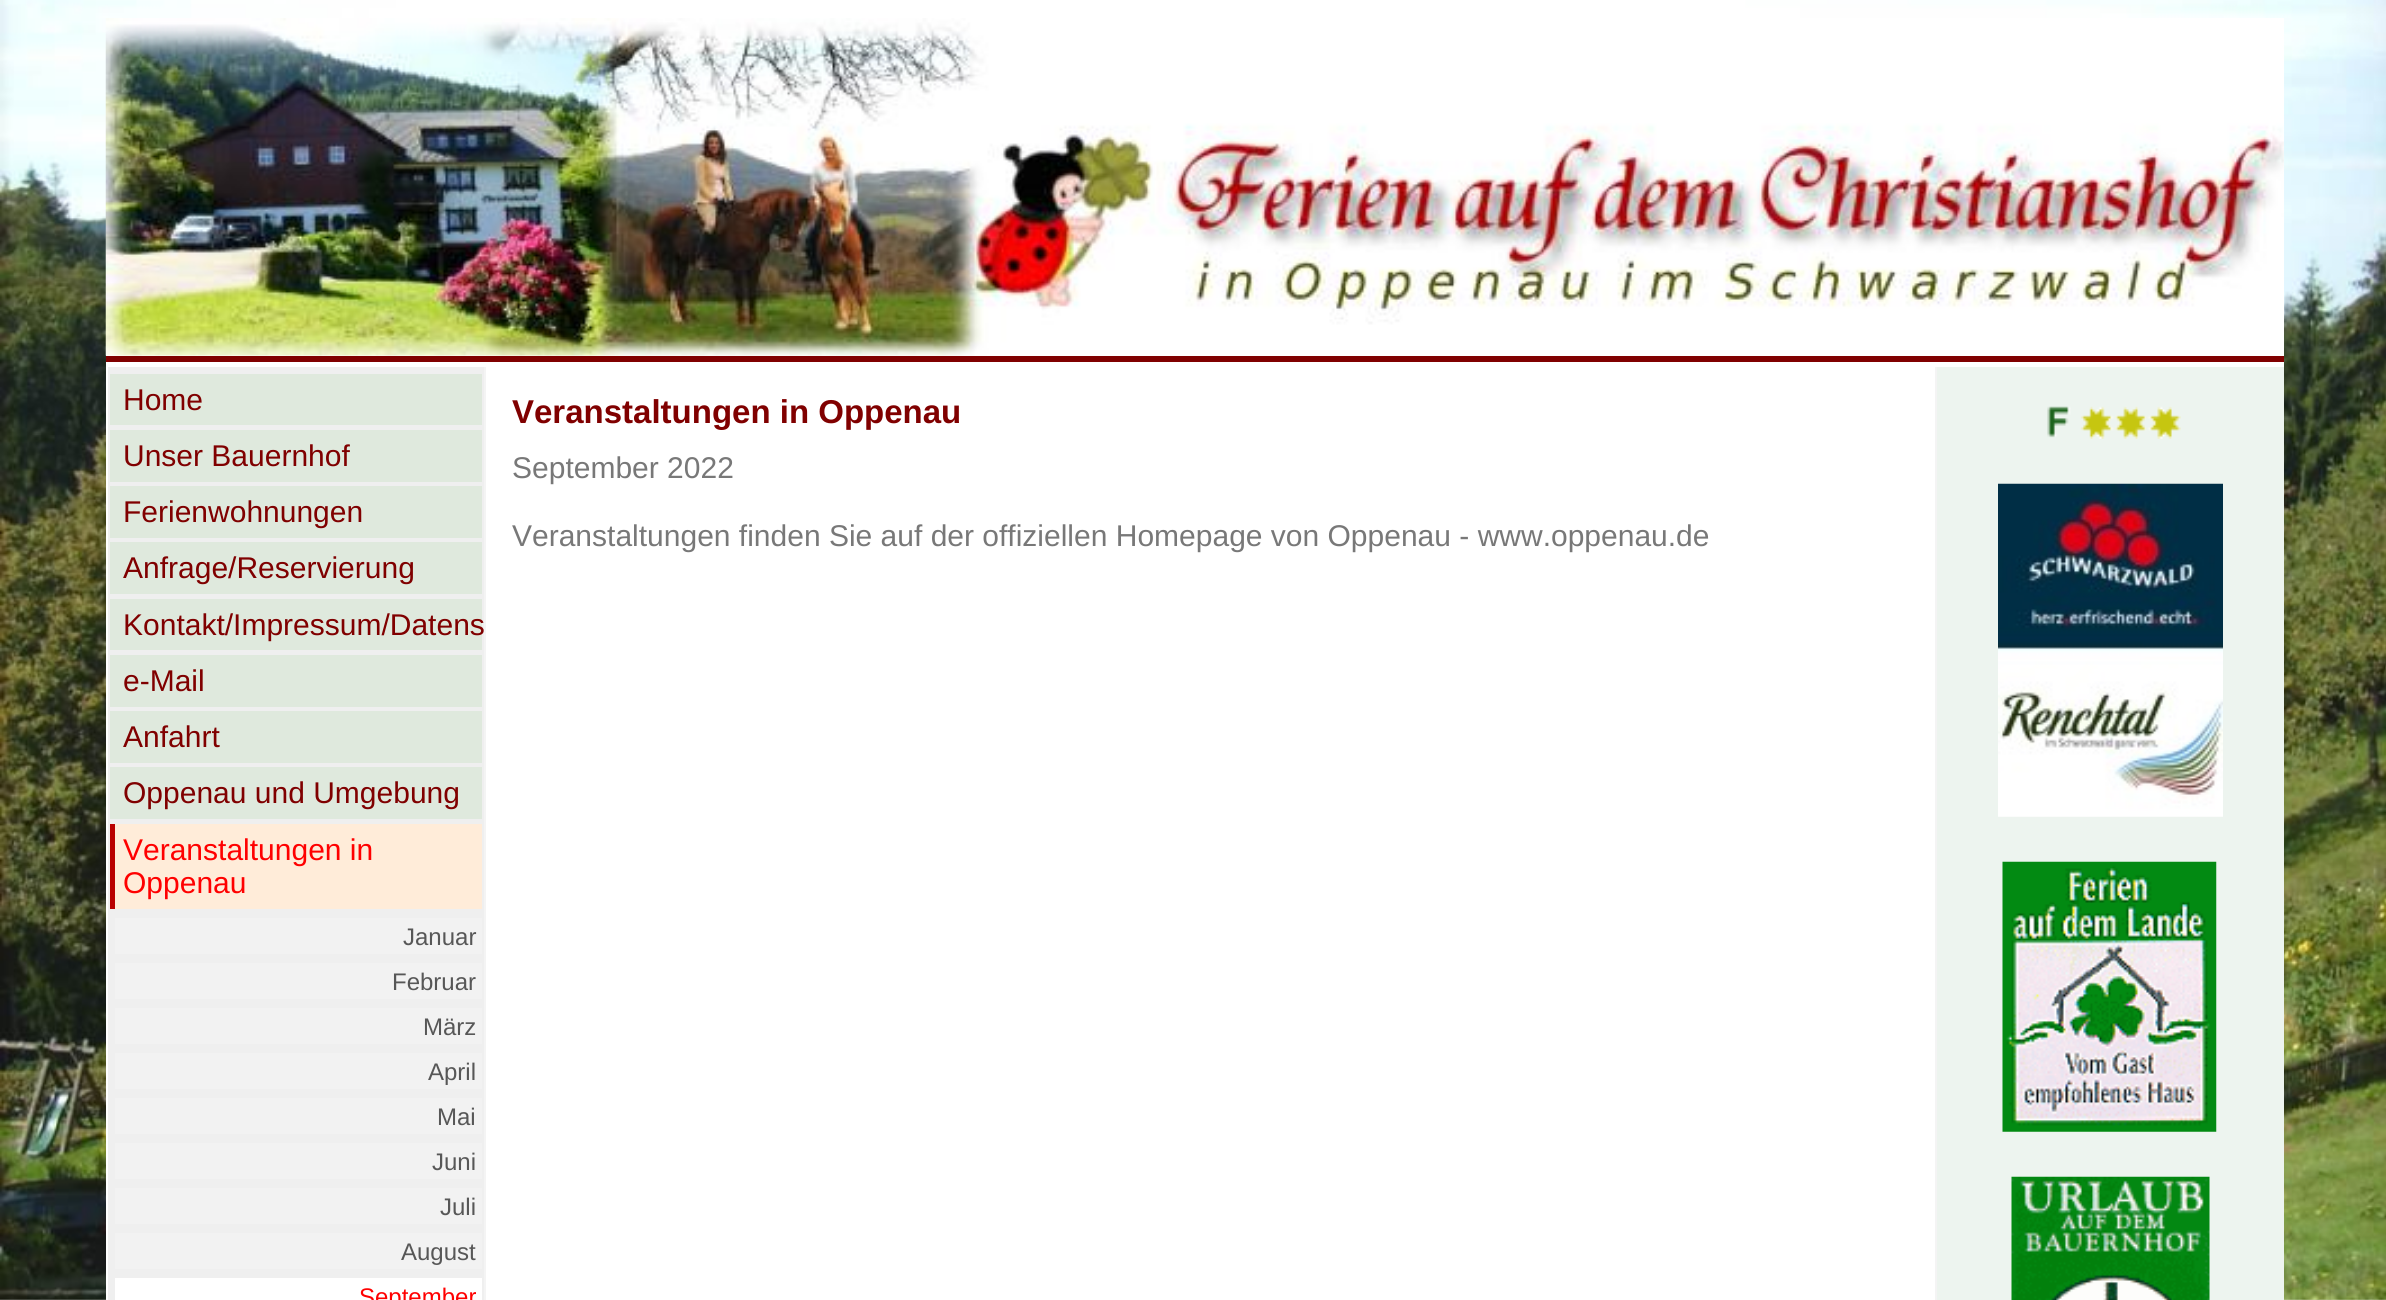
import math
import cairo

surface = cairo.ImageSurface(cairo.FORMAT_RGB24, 2386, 1300)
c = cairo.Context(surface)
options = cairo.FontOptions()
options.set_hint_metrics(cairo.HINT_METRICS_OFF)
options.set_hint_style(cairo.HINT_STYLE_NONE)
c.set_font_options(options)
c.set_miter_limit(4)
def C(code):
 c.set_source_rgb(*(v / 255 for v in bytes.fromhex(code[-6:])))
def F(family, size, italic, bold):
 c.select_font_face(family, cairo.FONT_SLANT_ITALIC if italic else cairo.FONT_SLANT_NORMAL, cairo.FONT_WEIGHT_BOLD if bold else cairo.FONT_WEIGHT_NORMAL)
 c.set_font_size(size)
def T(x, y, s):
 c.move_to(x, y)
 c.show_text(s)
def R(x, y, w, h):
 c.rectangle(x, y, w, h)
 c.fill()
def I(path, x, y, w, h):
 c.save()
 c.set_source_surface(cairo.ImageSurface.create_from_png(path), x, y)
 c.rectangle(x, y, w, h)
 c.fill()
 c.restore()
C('ffffff')
c.paint()
I('1.png',0,0,2386,1300)
C('ffffff')
R(106,18,2178,338)
I('2.png',105,18,2179,338)
C('800000')
R(106,356,2178,6)
C('ffffff')
R(106,362,2178,5)
R(106,367,1829,933)
C('efefef')
R(108,367,376,933)
C('dfe9dd')
R(110,374,372,51)
F('Liberation Sans',30,0,0)
C('800000')
T(123,410,'Home')
C('dfe9dd')
R(110,430,372,52)
C('800000')
T(123,466,'Unser Bauernhof')
C('dfe9dd')
R(110,486,372,52)
C('800000')
T(123,522,'Ferienwohnungen')
C('dfe9dd')
R(110,542,372,52)
C('800000')
T(123,578,'Anfrage/Reservierung')
C('dfe9dd')
R(110,599,372,51)
C('800000')
T(123,635,'Kontakt/Impressum/Datens')
C('dfe9dd')
R(110,655,372,52)
C('800000')
T(123,691,'e-Mail')
C('dfe9dd')
R(110,711,372,52)
C('800000')
T(123,747,'Anfahrt')
C('dfe9dd')
R(110,767,372,52)
C('800000')
T(123,803,'Oppenau und Umgebung')
C('ffecd9')
R(115,824,367,85)
C('b90000')
R(110,824,5,85)
C('ff0000')
T(123,860,'Veranstaltungen in')
T(123,893,'Oppenau')
C('f2f2f2')
R(115,918,367,36)
F('Liberation Sans',24,0,0)
C('575757')
T(403,945,'Januar')
C('f2f2f2')
R(115,963,367,36)
C('575757')
T(392,990,'Februar')
C('f2f2f2')
R(115,1008,367,36)
C('575757')
T(423,1035,'März')
C('f2f2f2')
R(115,1053,367,36)
C('575757')
T(428,1080,'April')
C('f2f2f2')
R(115,1098,367,36)
C('575757')
T(437,1125,'Mai')
C('f2f2f2')
R(115,1143,367,36)
C('575757')
T(432,1170,'Juni')
C('f2f2f2')
R(115,1188,367,36)
C('575757')
T(440,1215,'Juli')
C('f2f2f2')
R(115,1233,367,36)
C('575757')
T(401,1260,'August')
C('ffffff')
R(115,1278,367,22)
C('ff0000')
T(359,1305,'September')
C('f4f4f4')
R(1935,367,2,933)
R(484,367,2,933)
F('Liberation Sans',33,0,1)
C('800000')
T(512,423,'Veranstaltungen in Oppenau')
F('Liberation Sans',30,0,0)
C('787878')
T(512,478,'September 2022')
T(512,546,'Veranstaltungen finden Sie auf der offiziellen Homepage von Oppenau - www.oppenau.de')
C('edf4ef')
R(1937,367,347,933)
I('3.png',2047,406,134,33)
I('4.png',1998,483,225,334)
I('5.png',2002,861,215,271)
I('6.png',2011,1176,199,124)
surface.write_to_png('o.png')
